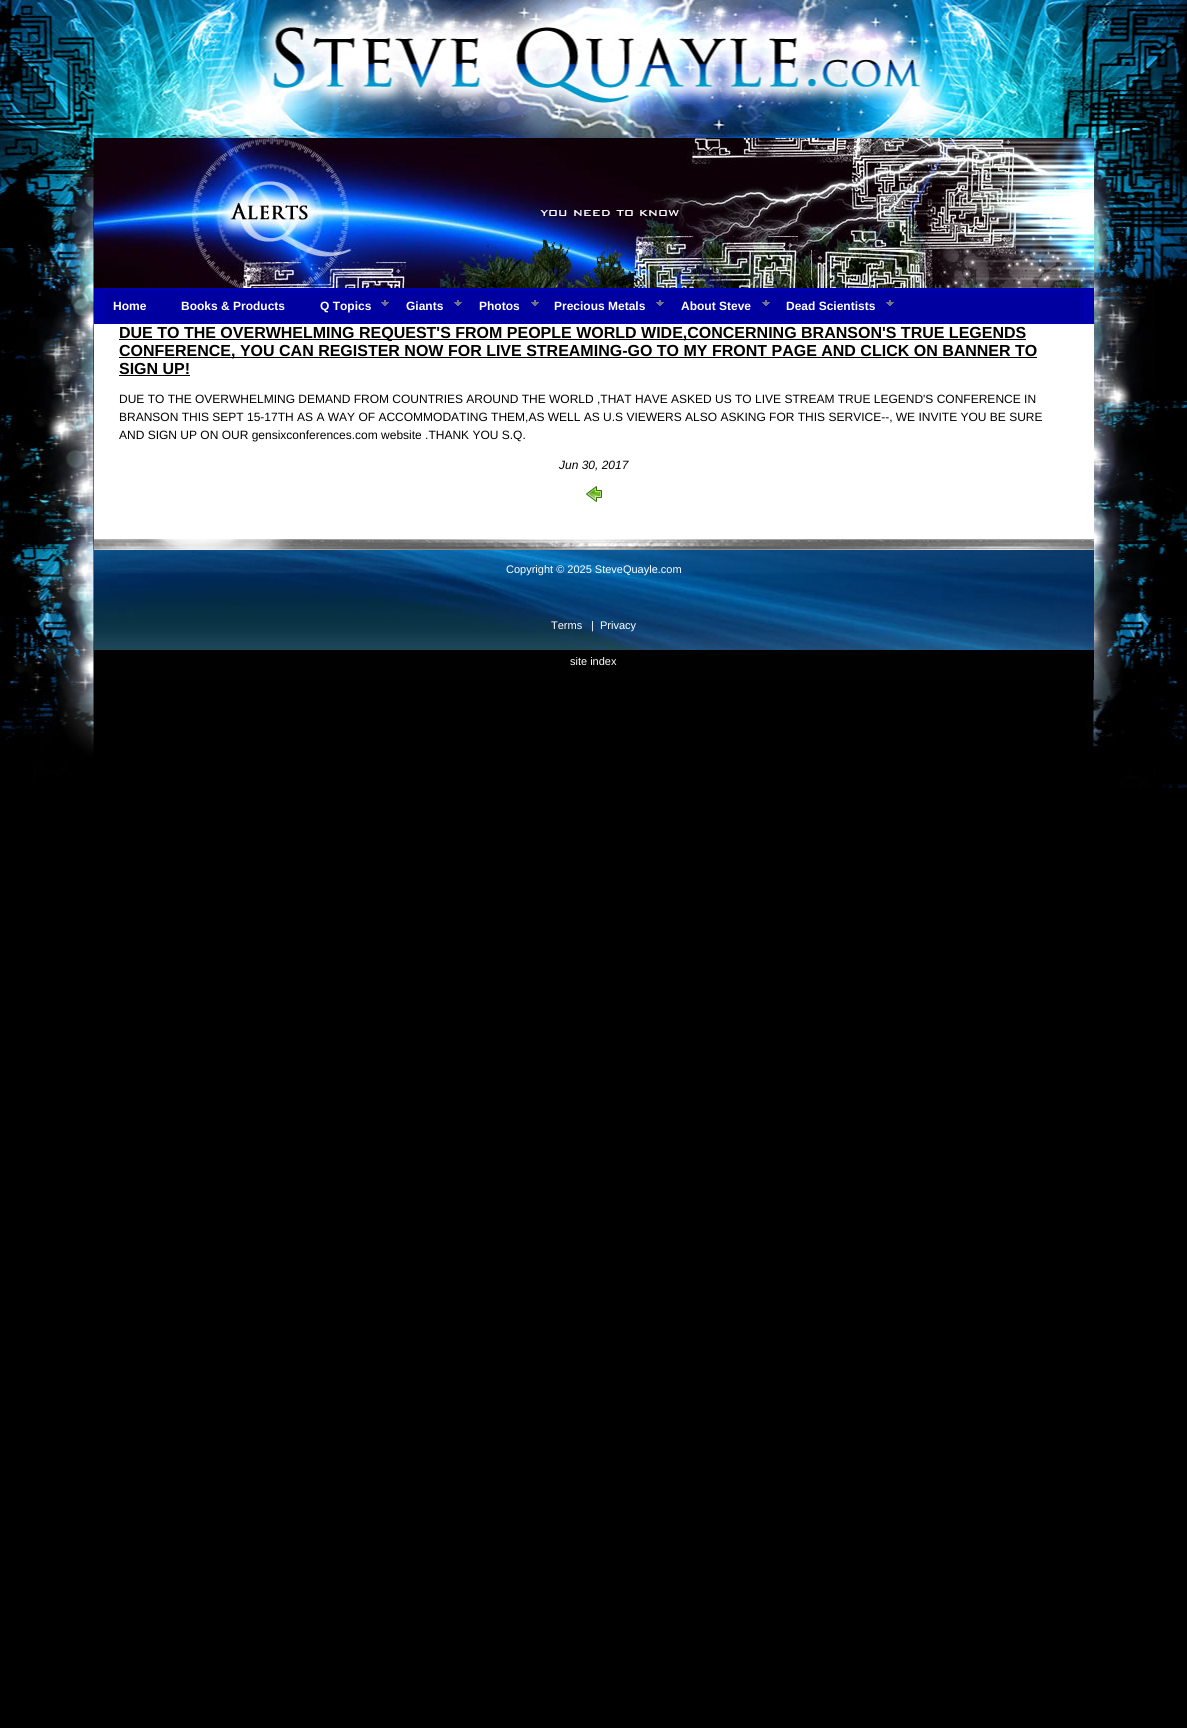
import math
import cairo

surface = cairo.ImageSurface(cairo.FORMAT_RGB24, 1187, 1728)
c = cairo.Context(surface)
options = cairo.FontOptions()
options.set_hint_metrics(cairo.HINT_METRICS_OFF)
options.set_hint_style(cairo.HINT_STYLE_NONE)
c.set_font_options(options)
c.set_miter_limit(4)
def C(code):
 c.set_source_rgb(*(v / 255 for v in bytes.fromhex(code[-6:])))
def F(family, size, italic, bold):
 c.select_font_face(family, cairo.FONT_SLANT_ITALIC if italic else cairo.FONT_SLANT_NORMAL, cairo.FONT_WEIGHT_BOLD if bold else cairo.FONT_WEIGHT_NORMAL)
 c.set_font_size(size)
def T(x, y, s):
 c.move_to(x, y)
 c.show_text(s)
def R(x, y, w, h):
 c.rectangle(x, y, w, h)
 c.fill()
def I(path, x, y, w, h):
 c.save()
 c.set_source_surface(cairo.ImageSurface.create_from_png(path), x, y)
 c.rectangle(x, y, w, h)
 c.fill()
 c.restore()
C('000000')
c.paint()
I('1.png',0,0,1187,788)
I('2.png',94,138,1000,150)
C('0000ad')
R(94,288,1000,36)
C('0000a0')
R(105,294,978,24)
R(104,291,980,3)
R(1083,291,1,30)
R(104,318,980,3)
R(104,291,1,30)
F('Liberation Sans',12,0,1)
C('ffffff')
T(113,310,'Home')
T(181,310,'Books & Products')
T(320,310,'Q Topics')
I('3.png',381,300,8,6)
T(406,310,'Giants')
I('3.png',454,300,8,6)
T(479,310,'Photos')
I('3.png',531,300,8,6)
T(554,310,'Precious Metals')
I('3.png',656,300,8,6)
T(681,310,'About Steve')
I('3.png',762,300,8,6)
T(786,310,'Dead Scientists')
I('3.png',886,300,8,6)
R(94,324,1000,215)
C('000000')
R(119,339,907,1)
F('Liberation Sans',16,0,1)
T(119,338,'DUE TO THE OVERWHELMING REQUEST\'S FROM PEOPLE WORLD WIDE,CONCERNING BRANSON\'S TRUE LEGENDS')
R(119,357,918,1)
T(119,356,'CONFERENCE, YOU CAN REGISTER NOW FOR LIVE STREAMING-GO TO MY FRONT PAGE AND CLICK ON BANNER TO')
T(119,374,'SIGN UP!')
R(119,375,71,1)
F('Liberation Sans',12,0,0)
T(119,403,'DUE TO THE OVERWHELMING DEMAND FROM COUNTRIES AROUND THE WORLD ,THAT HAVE ASKED US TO LIVE STREAM TRUE LEGEND\'S CONFERENCE IN')
T(119,421,'BRANSON THIS SEPT 15-17TH AS A WAY OF ACCOMMODATING THEM,AS WELL AS U.S VIEWERS ALSO ASKING FOR THIS SERVICE--, WE INVITE YOU BE SURE')
T(119,439,'AND SIGN UP ON OUR gensixconferences.com website .THANK YOU S.Q.')
F('Liberation Sans',12,1,0)
T(559,469,'Jun 30, 2017')
I('4.png',586,486,16,16)
I('5.png',94,539,1000,11)
C('010101')
R(94,650,1000,30)
I('6.png',94,550,1000,100)
F('Liberation Sans',11,0,0)
C('ffffff')
T(506,573,'Copyright © 2025 SteveQuayle.com')
T(551,629,'Terms')
T(591,629,'|')
T(600,629,'Privacy')
T(570,665,'site index')
surface.write_to_png('o.png')
